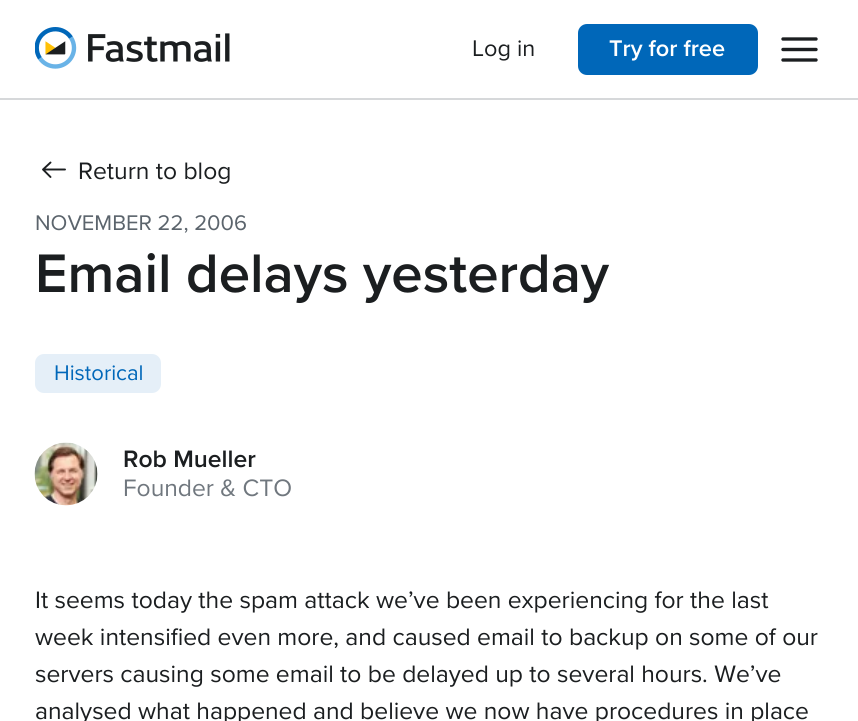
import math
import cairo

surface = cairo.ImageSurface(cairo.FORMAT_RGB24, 858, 721)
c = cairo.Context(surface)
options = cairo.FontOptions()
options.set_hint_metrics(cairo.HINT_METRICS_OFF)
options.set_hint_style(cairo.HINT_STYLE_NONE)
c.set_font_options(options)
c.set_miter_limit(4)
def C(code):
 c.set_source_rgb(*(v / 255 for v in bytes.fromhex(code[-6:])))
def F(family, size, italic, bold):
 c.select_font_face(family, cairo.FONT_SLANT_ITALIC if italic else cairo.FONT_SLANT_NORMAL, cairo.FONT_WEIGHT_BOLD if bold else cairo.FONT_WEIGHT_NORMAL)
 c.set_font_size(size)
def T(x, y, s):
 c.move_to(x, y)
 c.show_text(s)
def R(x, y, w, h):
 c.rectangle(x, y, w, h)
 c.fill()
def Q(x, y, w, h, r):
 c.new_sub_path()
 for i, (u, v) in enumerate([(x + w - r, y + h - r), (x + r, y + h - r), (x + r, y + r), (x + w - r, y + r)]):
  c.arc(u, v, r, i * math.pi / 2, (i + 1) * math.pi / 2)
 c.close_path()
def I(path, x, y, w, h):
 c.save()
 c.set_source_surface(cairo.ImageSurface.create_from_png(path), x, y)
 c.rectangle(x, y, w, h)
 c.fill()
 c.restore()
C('ffffff')
c.paint()
I('1.png',35,27,195,42)
F('Proxima Nova',23.5,0,0)
C('1b1e20')
T(472,56,'Log in')
C('0067b9')
Q(578,24,180,51,9)
c.fill()
F('Proxima Nova SemiBold',23.5,0,0)
C('ffffff')
T(609,56,'Try for free')
c.new_path()
c.move_to(783,39)
c.line_to(816,39)
c.move_to(783,49.5)
c.line_to(816,49.5)
c.move_to(783,60)
c.line_to(816,60)
C('1b1e20')
c.set_line_width(3.4)
c.set_line_cap(cairo.LINE_CAP_ROUND)
c.set_line_join(cairo.LINE_JOIN_ROUND)
c.stroke()
C('d6d8da')
R(0,98,858,2)
c.new_path()
c.move_to(65,169.5)
c.line_to(43,169.5)
c.move_to(50.5,177)
c.line_to(43,169.5)
c.line_to(50.5,162.5)
C('1b1e20')
c.set_line_width(1.9)
c.stroke()
F('Proxima Nova',24.65,0,0)
T(78,179,'Return to blog')
F('Proxima Nova',22,0,0)
C('5b646c')
T(35,230,'NOVEMBER 22, 2006')
F('Proxima Nova SemiBold',56.25,0,0)
C('1b1e20')
T(35,292,'Email delays yesterday')
C('e5eff8')
Q(35,354,126,39,9)
c.fill()
F('Proxima Nova',22,0,0)
C('0067b9')
T(54,380,'Historical')
I('2.png',34,442,64,64)
F('Proxima Nova SemiBold',24.65,0,0)
C('1b1e20')
T(123,467,'Rob Mueller')
F('Proxima Nova',24.65,0,0)
C('70777e')
T(123,496,'Founder & CTO')
C('1b1e20')
T(35,608,'It seems today the spam attack we’ve been experiencing for the last')
T(35,645,'week intensified even more, and caused email to backup on some of our')
T(35,682,'servers causing some email to be delayed up to several hours. We’ve')
T(35,719,'analysed what happened and believe we now have procedures in place')
surface.write_to_png('o.png')
